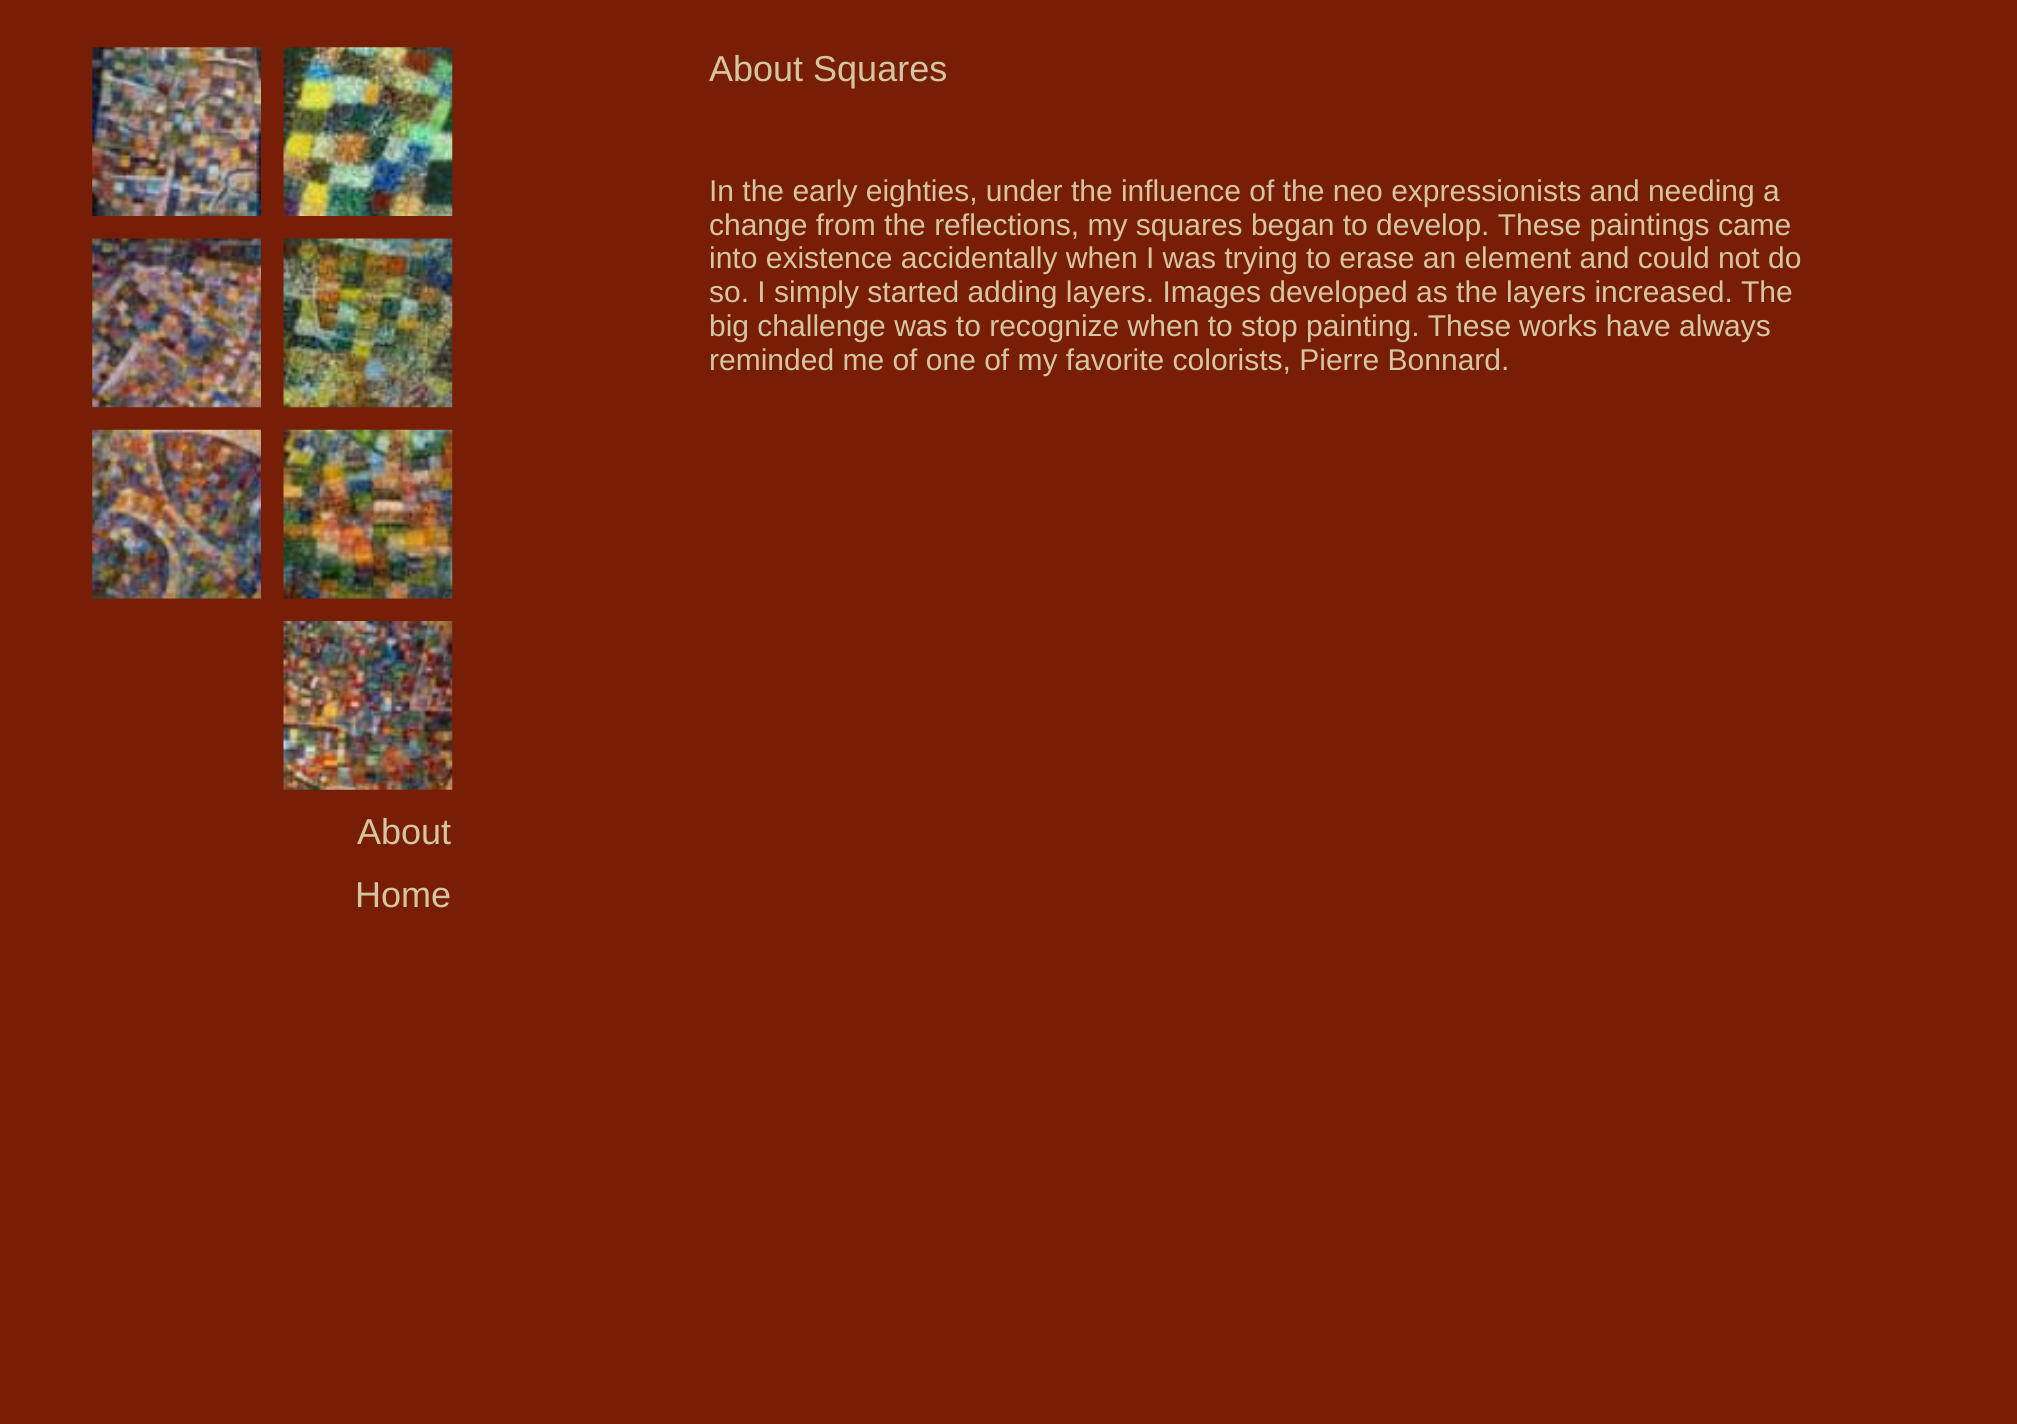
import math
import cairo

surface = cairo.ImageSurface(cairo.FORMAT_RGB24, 2017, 1424)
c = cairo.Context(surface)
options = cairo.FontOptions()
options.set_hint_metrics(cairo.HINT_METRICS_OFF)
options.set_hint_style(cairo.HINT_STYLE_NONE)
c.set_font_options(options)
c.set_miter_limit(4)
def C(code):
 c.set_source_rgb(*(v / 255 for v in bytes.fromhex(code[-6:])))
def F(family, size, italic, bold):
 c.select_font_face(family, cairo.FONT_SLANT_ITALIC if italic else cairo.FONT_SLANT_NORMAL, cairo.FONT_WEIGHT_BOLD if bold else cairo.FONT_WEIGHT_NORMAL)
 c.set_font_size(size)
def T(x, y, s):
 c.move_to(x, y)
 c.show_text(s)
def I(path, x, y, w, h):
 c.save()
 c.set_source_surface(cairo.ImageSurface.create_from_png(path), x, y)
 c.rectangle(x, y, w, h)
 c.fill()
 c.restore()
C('781e07')
c.paint()
F('Liberation Sans',36,0,0)
C('d5c6a2')
T(709,81,'About Squares')
F('Liberation Sans',30,0,0)
T(709,201,'In the early eighties, under the influence of the neo expressionists and needing a')
T(709,235,'change from the reflections, my squares began to develop. These paintings came')
T(709,268,'into existence accidentally when I was trying to erase an element and could not do')
T(709,302,'so. I simply started adding layers. Images developed as the layers increased.')
T(1741,302,'The')
T(709,336,'big challenge was to recognize when to stop painting. These')
T(1519,336,'works have always')
T(709,370,'reminded me of one of my favorite colorists, Pierre Bonnard.')
I('1.png',92,47,169,169)
I('2.png',283,47,170,169)
I('3.png',92,238,169,170)
I('4.png',283,238,170,170)
I('5.png',92,429,169,170)
I('6.png',283,429,170,170)
I('7.png',283,621,170,169)
F('Liberation Sans',36,0,0)
T(357,844,'About')
T(355,907,'Home')
surface.write_to_png('o.png')
